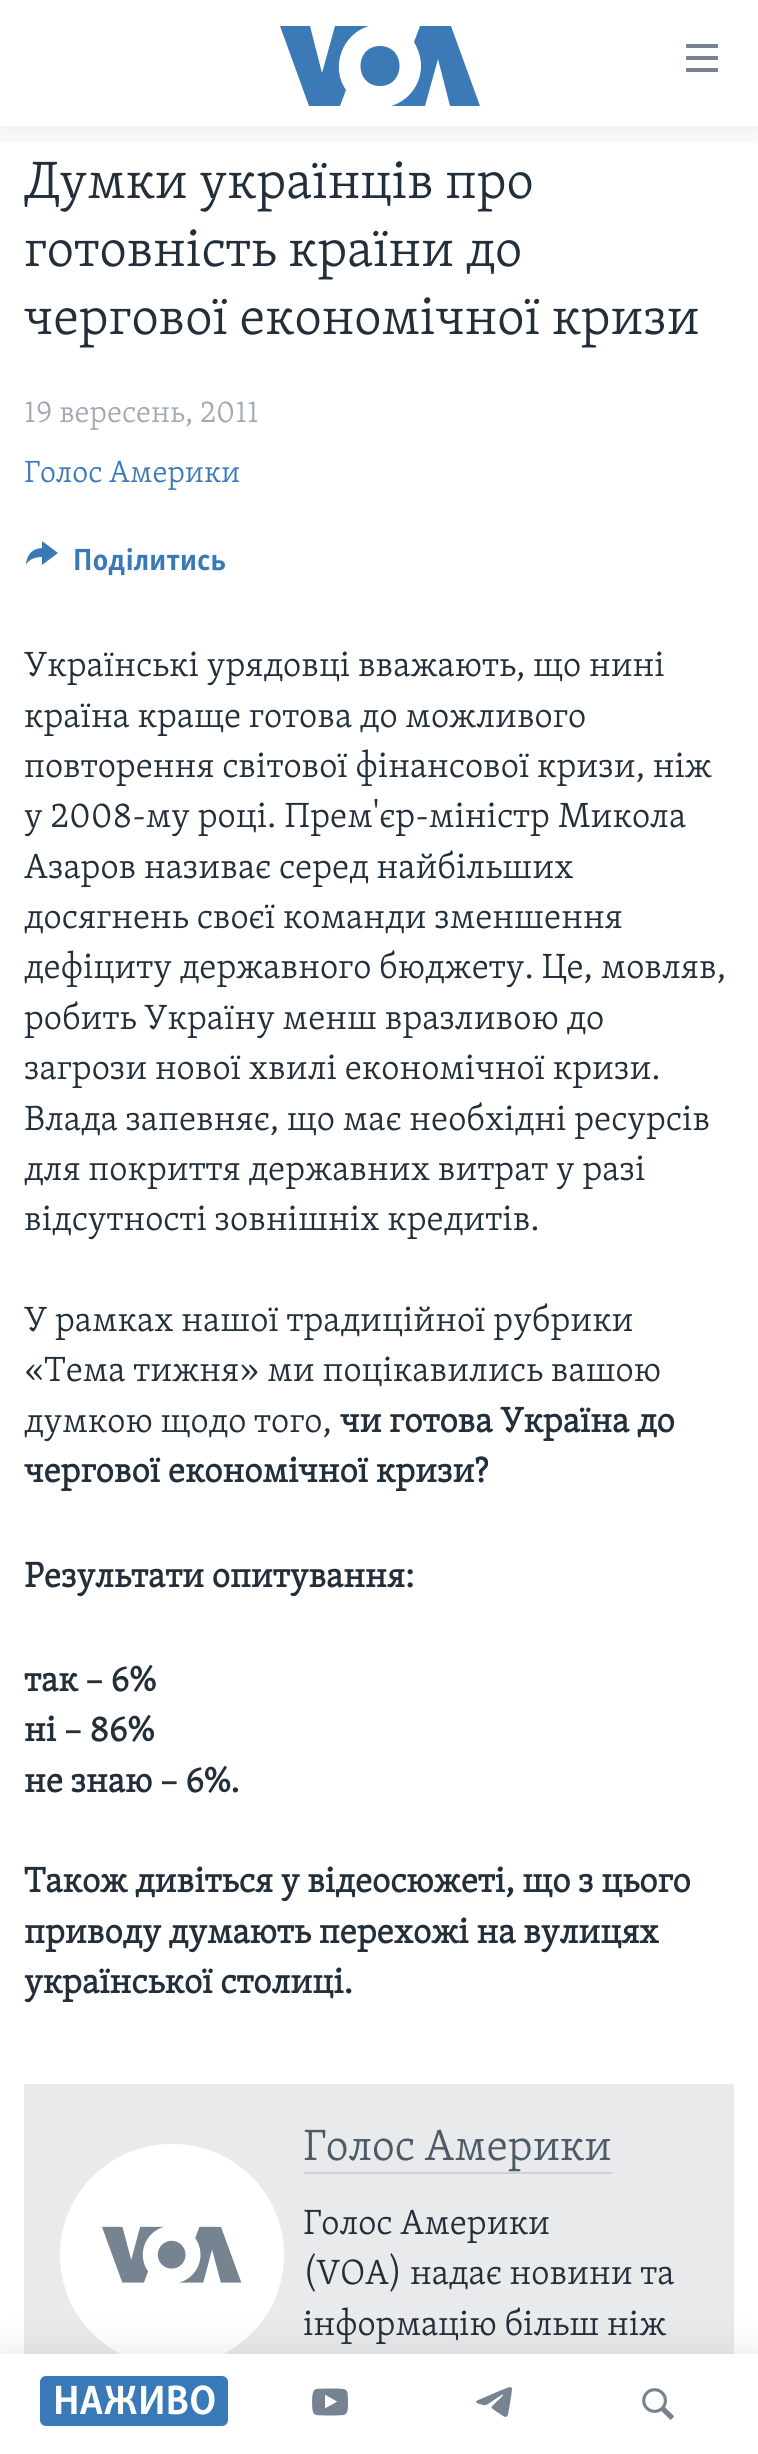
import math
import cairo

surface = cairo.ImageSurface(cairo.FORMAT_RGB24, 758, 2454)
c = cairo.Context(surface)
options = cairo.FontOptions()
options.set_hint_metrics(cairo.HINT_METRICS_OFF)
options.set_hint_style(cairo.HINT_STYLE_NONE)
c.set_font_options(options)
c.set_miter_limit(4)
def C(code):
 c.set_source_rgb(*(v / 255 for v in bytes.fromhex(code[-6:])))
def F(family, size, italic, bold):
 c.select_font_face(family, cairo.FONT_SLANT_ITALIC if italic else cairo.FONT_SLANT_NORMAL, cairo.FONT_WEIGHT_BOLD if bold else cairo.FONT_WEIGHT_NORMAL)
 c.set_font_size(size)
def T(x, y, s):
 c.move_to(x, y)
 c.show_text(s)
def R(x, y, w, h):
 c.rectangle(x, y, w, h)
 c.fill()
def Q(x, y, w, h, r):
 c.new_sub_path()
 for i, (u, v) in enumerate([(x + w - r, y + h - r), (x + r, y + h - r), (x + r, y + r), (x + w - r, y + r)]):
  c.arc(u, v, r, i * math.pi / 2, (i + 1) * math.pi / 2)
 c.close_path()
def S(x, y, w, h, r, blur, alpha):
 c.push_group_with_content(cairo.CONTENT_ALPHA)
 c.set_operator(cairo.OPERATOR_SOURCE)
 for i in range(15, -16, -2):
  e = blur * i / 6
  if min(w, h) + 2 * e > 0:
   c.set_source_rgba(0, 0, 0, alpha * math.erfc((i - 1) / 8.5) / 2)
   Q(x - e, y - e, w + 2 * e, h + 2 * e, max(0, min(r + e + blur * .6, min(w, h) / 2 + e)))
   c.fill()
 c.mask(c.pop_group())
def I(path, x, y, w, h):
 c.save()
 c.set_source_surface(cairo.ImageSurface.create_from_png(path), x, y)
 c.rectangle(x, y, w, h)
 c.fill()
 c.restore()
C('ffffff')
c.paint()
F('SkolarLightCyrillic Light',54,0,0)
C('222f3a')
T(24,198,'Думки українців про')
T(24,266,'готовність країни до')
T(24,334,'чергової економічної кризи')
F('SkolarLightCyrillic Light',31.5,0,0)
C('a1aab4')
T(24,422,'19 вересень, 2011')
C('3a79b7')
T(24,482,'Голос Америки')
c.new_path()
c.move_to(26,565)
c.curve_to(26.5,555,32,548.5,42,548)
c.line_to(42,541)
c.line_to(58,553)
c.line_to(42,565)
c.line_to(42,557)
c.curve_to(36,557,28.5,559,26,565)
c.close_path()
c.fill()
F('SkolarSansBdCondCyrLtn',31.5,0,1)
T(73,570,'Поділитись')
F('SkolarLightCyrillic Light',36,0,0)
C('222f3a')
T(24,676,'Українські урядовці вважають, що нині')
T(24,727,'країна краще готова до можливого')
T(24,777,'повторення світової фінансової кризи, ніж')
T(24,827,'у 2008-му році. Прем\'єр-міністр Микола')
T(24,878,'Азаров називає серед найбільших')
T(24,928,'досягнень своєї команди зменшення')
T(24,978,'дефіциту державного бюджету. Це, мовляв,')
T(24,1029,'робить Україну менш вразливою до')
T(24,1079,'загрози нової хвилі економічної кризи.')
T(24,1130,'Влада запевняє, що має необхідні ресурсів')
T(24,1180,'для покриття державних витрат у разі')
T(24,1230,'відсутності зовнішніх кредитів.')
T(24,1331,'У рамках нашої традиційної рубрики')
T(24,1381,'«Тема тижня» ми поцікавились вашою')
T(24,1432,'думкою щодо того,')
F('SkolarLightCyrillic',36,0,1)
T(340,1432,'чи готова Україна до')
T(24,1482,'чергової економічної кризи?')
T(24,1587,'Результати опитування:')
T(24,1691,'так – 6%')
T(24,1741,'ні – 86%')
T(24,1792,'не знаю – 6%.')
T(24,1892,'Також дивіться у відеосюжеті, що з цього')
T(24,1943,'приводу думають перехожі на вулицях')
T(24,1993,'української столиці.')
C('e8eaec')
R(24,2084,710,270)
C('ffffff')
Q(60,2144,224,222,111)
c.fill()
I('1.png',102,2226,140,57)
F('SkolarLightCyrillic Light',45,0,0)
C('4d5a67')
T(303,2160,'Голос Америки')
C('cbd1d6')
R(304,2172,308,2)
F('SkolarLightCyrillic Light',36,0,0)
C('222f3a')
T(303,2234,'Голос Америки')
T(303,2284,'(VOA) надає новини та')
T(303,2335,'інформацію більш ніж')
c.save()
c.rectangle(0,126,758,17)
c.clip()
C('000000')
S(0,0,758,126,0,20,.1)
c.restore()
C('3b79b7')
c.new_path()
c.move_to(346,90)
c.line_to(340,106)
c.line_to(309,106)
c.line_to(280,26)
c.line_to(310,26)
c.line_to(322,73)
c.line_to(335,26)
c.line_to(369,26)
c.curve_to(342,34,330,67,346,90)
c.close_path()
c.move_to(380,46)
c.curve_to(354,46,354,86,380,86)
c.curve_to(406,86,406,46,380,46)
c.close_path()
c.move_to(421,66)
c.curve_to(421,85,408,101,391,106)
c.line_to(425,106)
c.line_to(438,59)
c.line_to(450,106)
c.line_to(480,106)
c.line_to(451,26)
c.line_to(420,26)
c.line_to(414,42)
c.curve_to(418,49,421,57,421,66)
c.close_path()
c.fill()
I('2.png',686,44,32,28)
C('000000')
S(0,2354,758,100,0,20,.1)
C('ffffff')
R(0,2354,758,100)
C('3a79b7')
Q(40,2376,188,50,6)
c.fill()
F('SkolarSansBdCondCyrLtn',42,0,1)
C('ffffff')
T(53,2414,'НАЖИВО')
I('3.png',312,2388,36,28)
I('4.png',476,2387,36,30)
I('5.png',642,2388,32,32)
surface.write_to_png('o.png')
